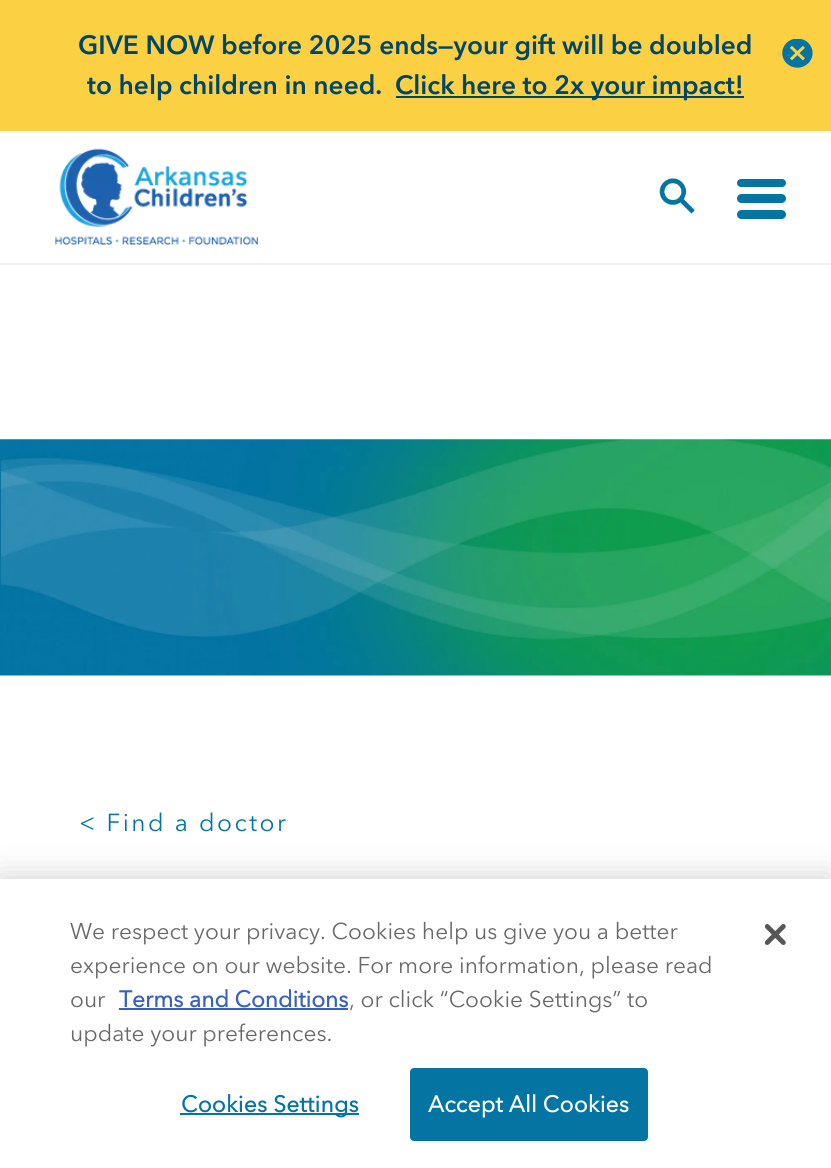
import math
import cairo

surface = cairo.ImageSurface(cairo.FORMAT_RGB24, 831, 1168)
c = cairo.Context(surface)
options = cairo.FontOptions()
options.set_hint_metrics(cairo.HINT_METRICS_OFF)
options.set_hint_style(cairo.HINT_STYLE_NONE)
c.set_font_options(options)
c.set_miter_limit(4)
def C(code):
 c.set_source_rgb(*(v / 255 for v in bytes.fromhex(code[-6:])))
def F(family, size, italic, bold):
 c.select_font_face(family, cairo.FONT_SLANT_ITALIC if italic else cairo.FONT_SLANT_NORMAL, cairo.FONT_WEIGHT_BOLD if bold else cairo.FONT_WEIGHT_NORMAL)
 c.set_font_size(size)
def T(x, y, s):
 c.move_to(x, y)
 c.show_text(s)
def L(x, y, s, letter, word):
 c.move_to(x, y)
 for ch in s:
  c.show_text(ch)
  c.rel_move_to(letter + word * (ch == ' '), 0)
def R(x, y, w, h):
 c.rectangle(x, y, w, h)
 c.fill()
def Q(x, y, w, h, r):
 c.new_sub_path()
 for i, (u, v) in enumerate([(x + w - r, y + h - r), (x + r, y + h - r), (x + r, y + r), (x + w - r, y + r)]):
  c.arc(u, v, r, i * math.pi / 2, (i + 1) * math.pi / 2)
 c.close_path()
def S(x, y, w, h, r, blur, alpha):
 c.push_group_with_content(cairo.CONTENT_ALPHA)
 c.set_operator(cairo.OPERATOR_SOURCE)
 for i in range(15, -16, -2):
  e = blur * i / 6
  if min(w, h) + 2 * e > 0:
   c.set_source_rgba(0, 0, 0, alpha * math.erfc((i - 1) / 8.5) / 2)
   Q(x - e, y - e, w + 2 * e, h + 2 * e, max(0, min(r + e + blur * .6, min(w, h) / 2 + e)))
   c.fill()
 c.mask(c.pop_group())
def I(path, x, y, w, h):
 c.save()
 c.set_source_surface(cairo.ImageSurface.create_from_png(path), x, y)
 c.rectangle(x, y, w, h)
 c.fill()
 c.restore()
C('ffffff')
c.paint()
C('f0f0f0')
R(0,263,831,2)
C('fbd043')
R(0,0,831,131)
F('Avenir Next',26.25,0,1)
C('004668')
T(78,54,'GIVE NOW before 2025 ends—your gift will be doubled')
T(87,94,'to help children in need.')
R(396,96,348,2)
T(395,94,'Click here to 2x your impact!')
I('1.png',782,39,31,29)
I('2.png',55,148,203,97)
I('3.png',659,178,36,36)
C('0374a4')
Q(737,179,49,8,4)
c.fill()
Q(737,194,49,9,4.5)
c.fill()
Q(737,210,49,9,4.5)
c.fill()
I('4.png',0,439,831,237)
F('Avenir Next',24.5,0,0)
L(79,831,'< Find a doctor',2.5,0)
C('000000')
S(0,879,831,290,0,16,.2)
C('ffffff')
R(0,879,831,289)
F('Avenir Next',22.75,0,0)
C('696969')
T(70,939,'We respect your privacy. Cookies help us give you a better')
T(70,973,'experience on our website. For more information, please read')
T(70,1007,'our')
F('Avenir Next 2',22.75,0,1)
C('3860be')
T(119,1007,'Terms and Conditions')
R(119,1008,229,2)
F('Avenir Next',22.75,0,0)
C('696969')
T(349,1007,', or click “Cookie Settings” to')
T(70,1041,'update your preferences.')
C('0474a3')
R(180,1113,179,2)
F('Avenir Next 2',22.75,0,1)
C('0374a4')
L(181,1112,'Cookies Settings',.25,0)
C('0474a3')
Q(411,1069,236,71,3)
c.fill_preserve()
c.stroke()
C('ffffff')
L(428,1112,'Accept All Cookies',.25,0)
I('5.png',765,924,21,21)
surface.write_to_png('o.png')
